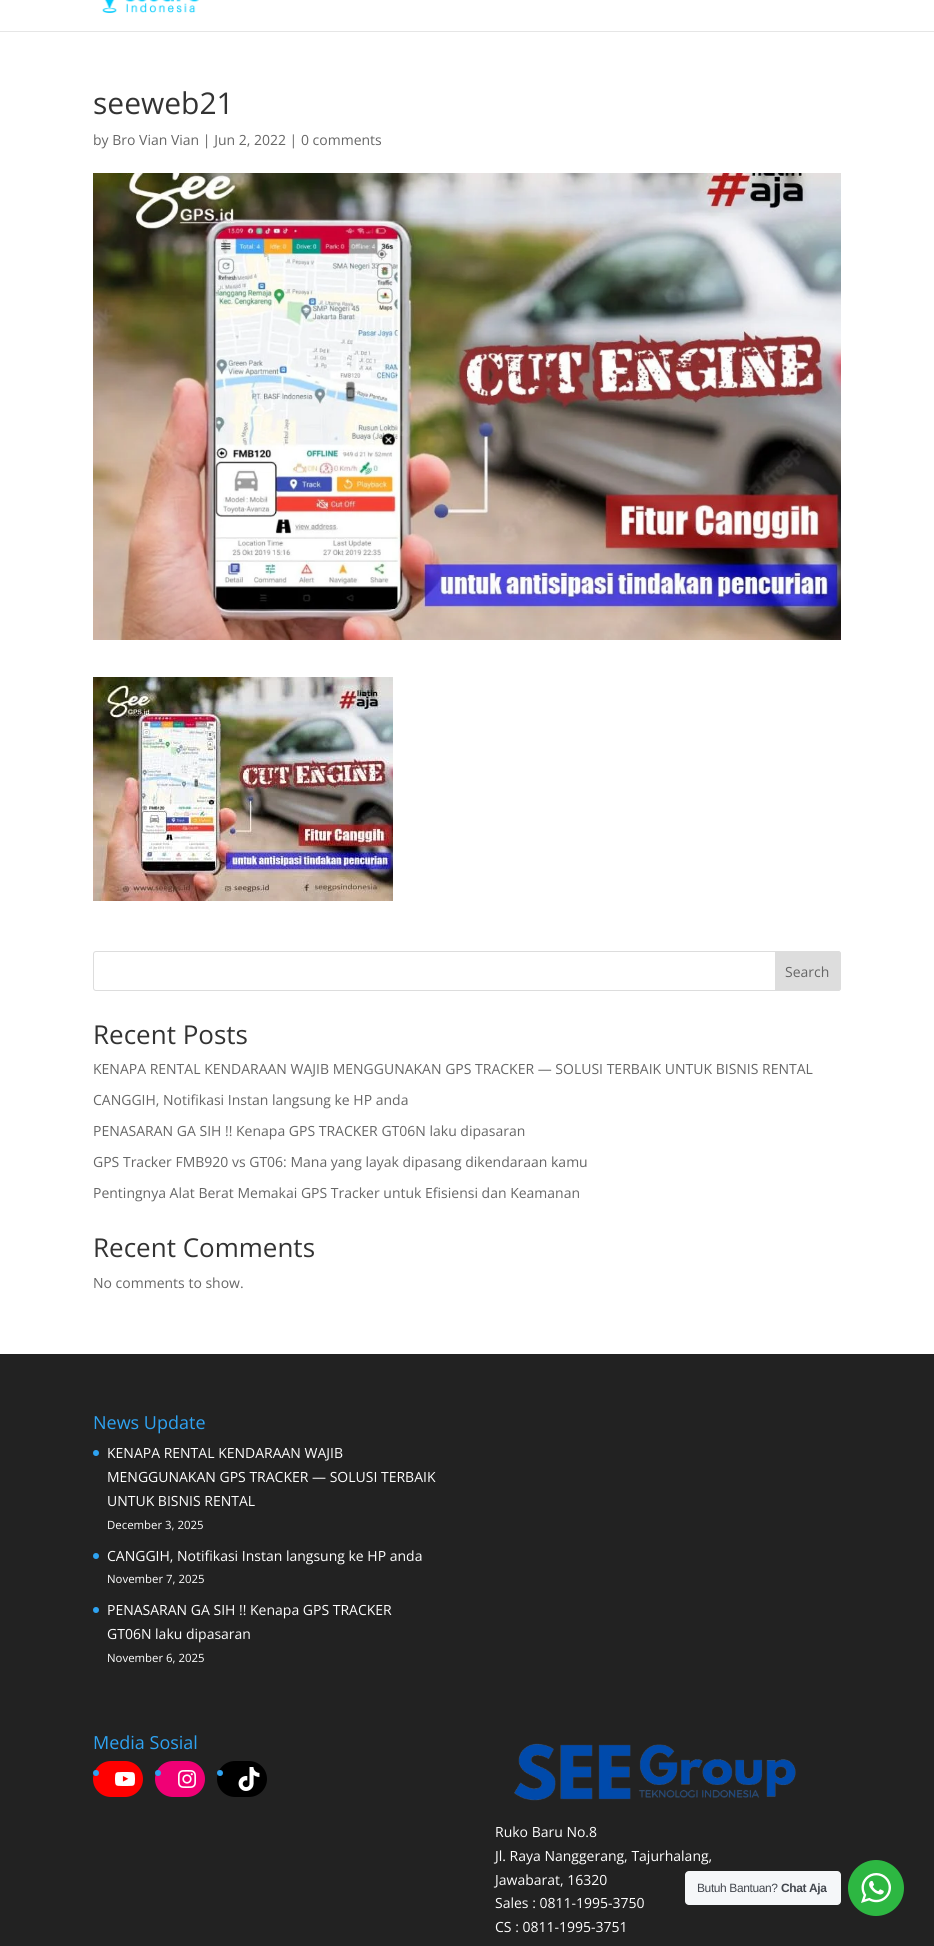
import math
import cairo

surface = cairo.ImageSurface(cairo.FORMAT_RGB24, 934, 1946)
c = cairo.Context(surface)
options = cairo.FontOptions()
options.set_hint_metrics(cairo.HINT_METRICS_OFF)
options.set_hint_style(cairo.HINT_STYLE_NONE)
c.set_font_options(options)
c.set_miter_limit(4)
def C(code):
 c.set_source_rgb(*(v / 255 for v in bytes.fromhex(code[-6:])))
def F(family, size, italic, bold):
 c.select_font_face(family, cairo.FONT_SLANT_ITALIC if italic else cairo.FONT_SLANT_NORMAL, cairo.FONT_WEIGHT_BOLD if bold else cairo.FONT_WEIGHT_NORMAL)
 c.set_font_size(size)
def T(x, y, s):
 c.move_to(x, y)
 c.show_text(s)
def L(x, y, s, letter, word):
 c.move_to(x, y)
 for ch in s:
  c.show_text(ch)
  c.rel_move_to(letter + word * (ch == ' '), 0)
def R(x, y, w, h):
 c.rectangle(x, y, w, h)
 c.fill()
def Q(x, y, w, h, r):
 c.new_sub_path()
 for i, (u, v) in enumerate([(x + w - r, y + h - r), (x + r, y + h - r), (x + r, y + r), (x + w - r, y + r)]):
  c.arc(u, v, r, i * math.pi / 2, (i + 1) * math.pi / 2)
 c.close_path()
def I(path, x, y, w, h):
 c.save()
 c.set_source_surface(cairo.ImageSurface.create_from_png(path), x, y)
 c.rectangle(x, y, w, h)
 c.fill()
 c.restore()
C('ffffff')
c.paint()
C('e6e6e6')
R(0,31,934,1)
I('1.png',102,0,97,13)
F('Open Sans',30,0,0)
C('333333')
T(93,114,'seeweb21')
F('Open Sans',14,0,0)
C('666666')
T(93,145,'by Bro Vian Vian | Jun 2, 2022 | 0 comments')
I('2.png',93,173,748,467)
I('3.png',93,677,300,224)
Q(93.5,951.5,747,39,2.5)
C('dddddd')
c.set_line_width(1)
c.stroke()
c.new_path()
c.move_to(775.5,951.5)
c.line_to(838,951.5)
c.curve_to(839.5,951.5,840.5,952.5,840.5,954)
c.line_to(840.5,988)
c.curve_to(840.5,989.5,839.5,990.5,838,990.5)
c.line_to(775.5,990.5)
c.close_path()
c.fill_preserve()
c.stroke()
C('666666')
T(785,977,'Search')
F('Open Sans',26,0,0)
C('333333')
T(93,1044,'Recent Posts')
F('Open Sans',14,0,0)
C('666666')
T(93,1074,'KENAPA RENTAL KENDARAAN WAJIB MENGGUNAKAN GPS TRACKER — SOLUSI TERBAIK UNTUK BISNIS RENTAL')
T(93,1105,'CANGGIH, Notifikasi Instan langsung ke HP anda')
T(93,1136,'PENASARAN GA SIH !! Kenapa GPS TRACKER GT06N laku dipasaran')
T(93,1167,'GPS Tracker FMB920 vs GT06: Mana yang layak dipasang dikendaraan kamu')
T(93,1198,'Pentingnya Alat Berat Memakai GPS Tracker untuk Efisiensi dan Keamanan')
F('Open Sans',26,0,0)
C('333333')
T(93,1257,'Recent Comments')
F('Open Sans',14,0,0)
C('666666')
T(93,1288,'No comments to show.')
C('222222')
R(0,1354,934,592)
F('Open Sans',18,0,0)
C('2ea3f2')
T(93,1429,'News Update')
c.new_path()
c.arc(96,1453,3,0,2 * math.pi)
c.fill()
F('Open Sans',14,0,0)
C('ffffff')
T(107,1458,'KENAPA RENTAL KENDARAAN WAJIB')
T(107,1482,'MENGGUNAKAN GPS TRACKER — SOLUSI TERBAIK')
T(107,1506,'UNTUK BISNIS RENTAL')
F('Open Sans',11.4,0,0)
T(107,1529,'December 3, 2025')
C('2ea3f2')
c.new_path()
c.arc(96,1556,3,0,2 * math.pi)
c.fill()
F('Open Sans',14,0,0)
C('ffffff')
T(107,1561,'CANGGIH, Notifikasi Instan langsung ke HP anda')
F('Open Sans',11.4,0,0)
T(107,1583,'November 7, 2025')
C('2ea3f2')
c.new_path()
c.arc(96,1610,3,0,2 * math.pi)
c.fill()
F('Open Sans',14,0,0)
C('ffffff')
T(107,1615,'PENASARAN GA SIH !! Kenapa GPS TRACKER')
T(107,1639,'GT06N laku dipasaran')
F('Open Sans',11.4,0,0)
T(107,1662,'November 6, 2025')
F('Open Sans',18,0,0)
C('2ea3f2')
T(93,1749,'Media Sosial')
C('ff0000')
Q(93,1761,50,36,18)
c.fill()
C('2ea3f2')
c.arc(96,1773,3,0,2 * math.pi)
c.fill()
I('4.png',115,1772,20,14)
C('f00075')
Q(155,1761,50,36,18)
c.fill()
C('2ea3f2')
c.arc(158,1773,3,0,2 * math.pi)
c.fill()
I('5.png',178,1770,18,18)
C('000000')
Q(217,1761,50,36,18)
c.fill()
C('2ea3f2')
c.arc(220,1773,3,0,2 * math.pi)
c.fill()
I('6.png',238,1767,22,24)
I('7.png',514,1743,282,58)
F('Open Sans',14,0,0)
C('ffffff')
T(495,1837,'Ruko Baru No.8')
T(495,1861,'Jl. Raya Nanggerang, Tajurhalang,')
T(495,1885,'Jawabarat, 16320')
T(495,1908,'Sales : 0811-1995-3750')
T(495,1932,'CS : 0811-1995-3751')
C('f5f7f9')
Q(685,1871,156,34,4)
c.fill()
F('Liberation Sans',12,0,0)
C('43474e')
L(697,1892,'Butuh Bantuan?',-.4,0)
F('Liberation Sans',12,0,1)
L(781,1892,'Chat Aja',-.4,0)
C('2db742')
c.new_path()
c.arc(876,1888,28,0,2 * math.pi)
c.fill()
I('8.png',861,1873,30,30)
surface.write_to_png('o.png')
